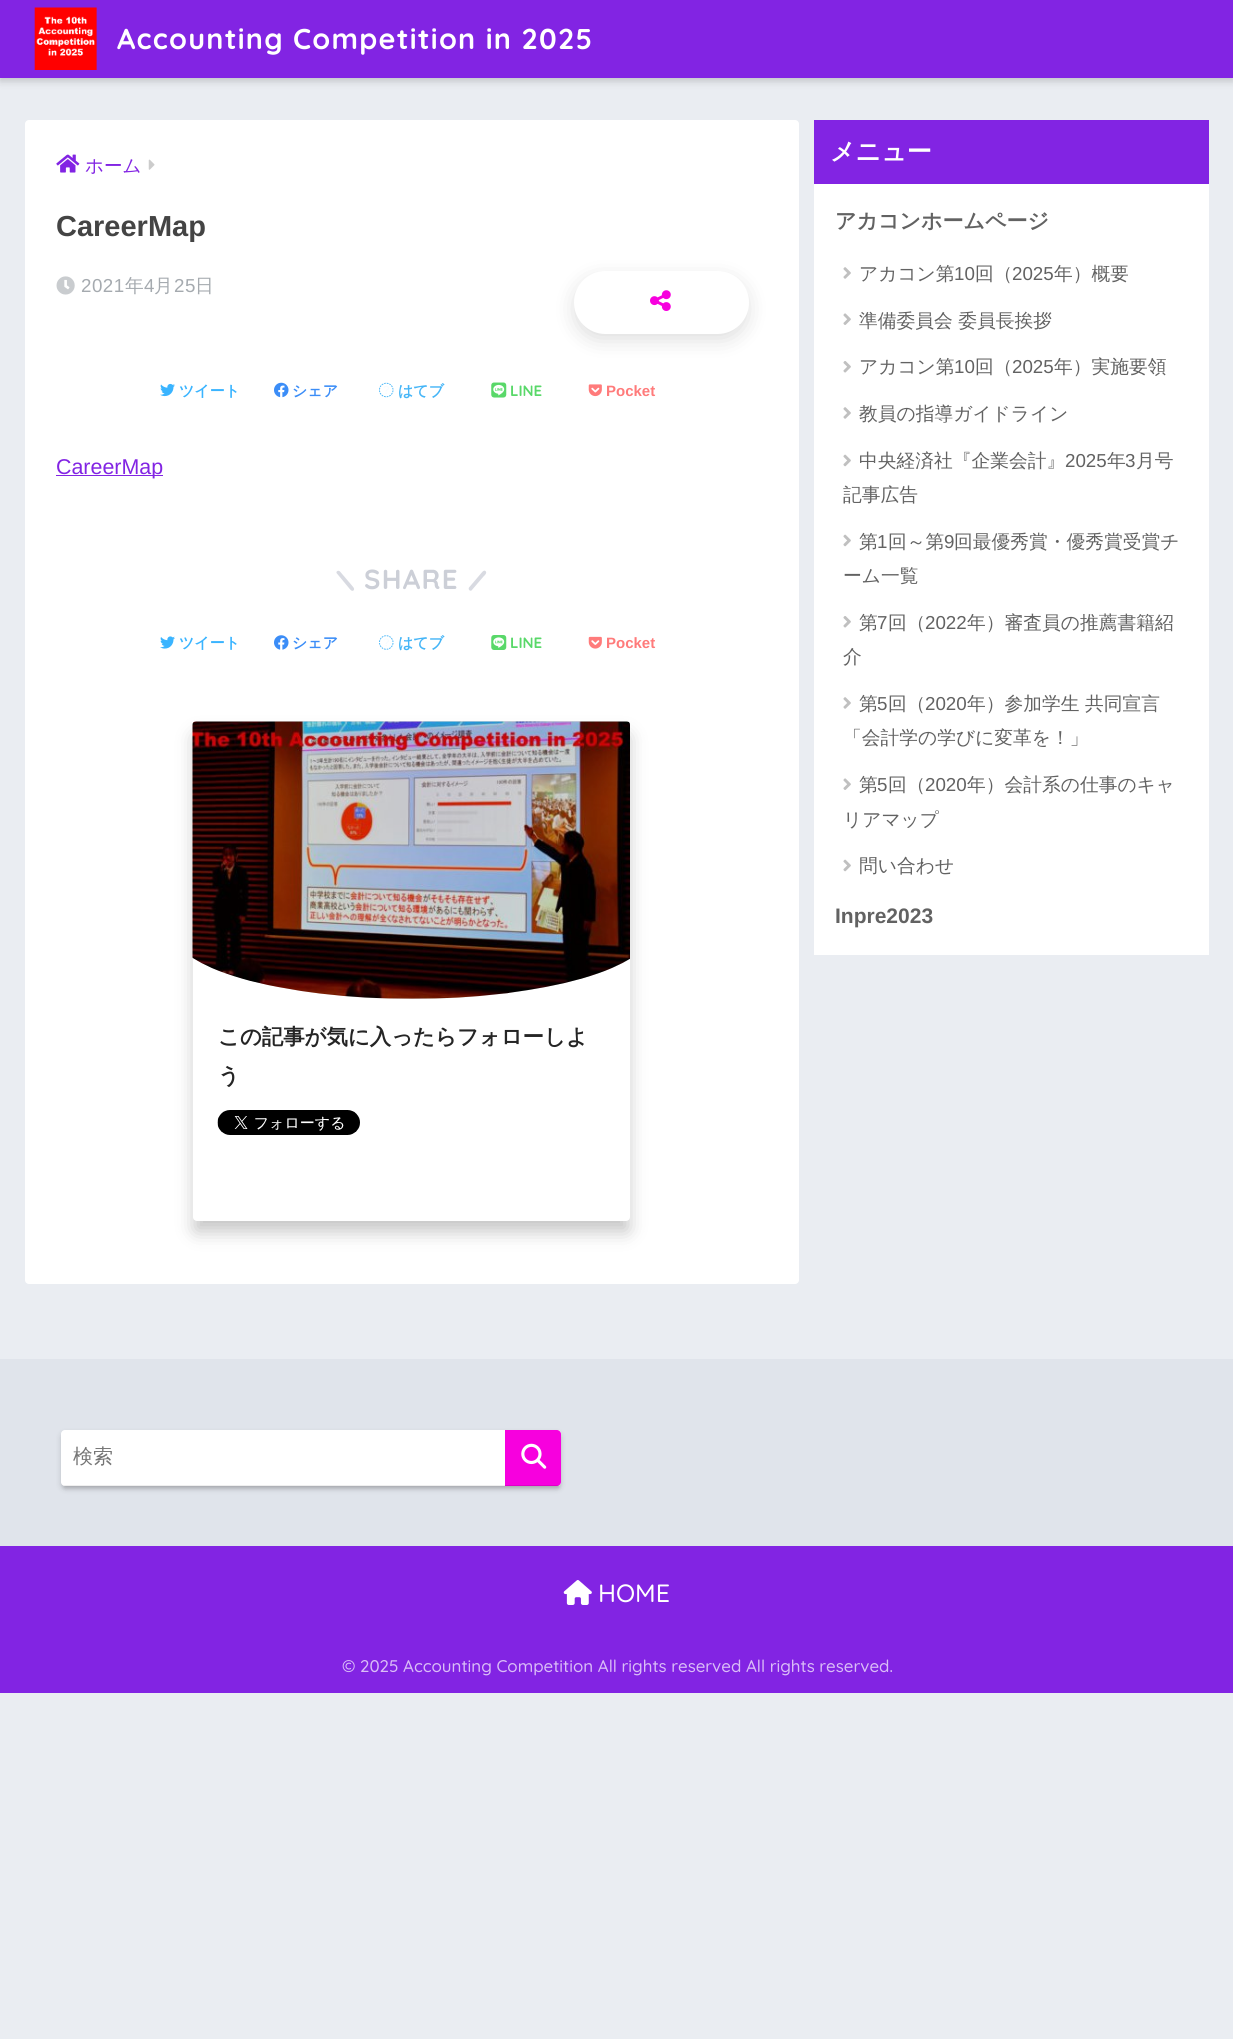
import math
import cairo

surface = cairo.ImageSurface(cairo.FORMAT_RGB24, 1233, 2039)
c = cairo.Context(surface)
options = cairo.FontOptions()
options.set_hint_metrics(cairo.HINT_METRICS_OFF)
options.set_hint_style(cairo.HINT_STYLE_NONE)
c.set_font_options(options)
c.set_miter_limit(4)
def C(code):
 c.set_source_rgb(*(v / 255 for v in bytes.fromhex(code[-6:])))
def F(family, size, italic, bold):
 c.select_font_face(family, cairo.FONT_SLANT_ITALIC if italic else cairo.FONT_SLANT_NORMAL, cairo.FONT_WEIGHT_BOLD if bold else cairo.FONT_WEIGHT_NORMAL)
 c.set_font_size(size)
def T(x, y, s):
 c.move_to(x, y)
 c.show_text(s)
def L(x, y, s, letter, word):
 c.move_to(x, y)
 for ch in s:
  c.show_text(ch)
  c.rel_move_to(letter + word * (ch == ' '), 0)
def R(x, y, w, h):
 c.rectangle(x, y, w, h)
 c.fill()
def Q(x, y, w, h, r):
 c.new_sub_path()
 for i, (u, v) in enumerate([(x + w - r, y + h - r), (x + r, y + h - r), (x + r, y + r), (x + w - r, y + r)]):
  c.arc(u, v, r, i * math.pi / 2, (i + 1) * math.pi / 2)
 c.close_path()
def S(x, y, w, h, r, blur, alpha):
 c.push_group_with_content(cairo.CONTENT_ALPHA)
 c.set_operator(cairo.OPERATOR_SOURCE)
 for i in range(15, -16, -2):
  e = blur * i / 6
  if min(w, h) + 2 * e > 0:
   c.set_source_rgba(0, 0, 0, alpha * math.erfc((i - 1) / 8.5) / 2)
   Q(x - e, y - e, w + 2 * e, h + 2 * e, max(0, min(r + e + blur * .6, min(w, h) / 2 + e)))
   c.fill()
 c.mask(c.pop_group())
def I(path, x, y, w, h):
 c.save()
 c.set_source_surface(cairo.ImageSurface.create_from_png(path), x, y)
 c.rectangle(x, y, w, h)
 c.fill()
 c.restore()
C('eaedf2')
c.paint()
C('000000')
S(0,4,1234,77,0,4,.18)
C('8224e3')
R(0,0,1233,78)
I('1.png',34,7,63,63)
F('Quicksand',28.75,0,1)
C('ffffff')
L(117,49,'Accounting Competition in 2025',1.25,0)
Q(25,120,774,1164,4)
c.fill()
I('2.png',56,154,24,19)
F('WenQuanYi Zen Hei Medium',18.5,0,0)
C('8224e3')
T(85,172,'ホーム')
I('3.png',148,159,7,11)
F('Liberation Sans',29,0,1)
C('444444')
T(56,236,'CareerMap')
I('4.png',56,276,19,19)
F('Liberation Sans',18.75,0,0)
C('a5aaaf')
L(81,292,'2021',.5,0)
F('WenQuanYi Zen Hei Medium',18.75,0,0)
L(125,292,'年',.5,0)
F('Liberation Sans',18.75,0,0)
L(144,292,'4',.5,0)
F('WenQuanYi Zen Hei Medium',18.75,0,0)
L(154,292,'月',.5,0)
F('Liberation Sans',18.75,0,0)
L(174,292,'25',.5,0)
F('WenQuanYi Zen Hei Medium',18.75,0,0)
L(195,292,'日',.5,0)
C('000000')
S(576,280,170,58,29,11,.15)
C('ffffff')
Q(574,271,175,63,31.5)
c.fill()
I('5.png',650,290,21,21)
I('6.png',160,383,15,14)
F('WenQuanYi Zen Hei',15,0,1)
C('3ab4ff')
T(179,396,'ツイート')
I('7.png',274,382,15,16)
C('3b8df7')
T(292,396,'シェア')
I('8.png',379,382,15,16)
C('45b5f7')
T(398,396,'はてブ')
I('9.png',491,382,16,16)
F('Quicksand',15,0,1)
C('59d869')
T(510,396,'LINE')
I('10.png',588,384,14,13)
F('Liberation Sans',15,0,1)
C('ff7b7b')
T(606,396,'Pocket')
C('8224e3')
R(56,475,107,1)
F('Liberation Sans',21.4,0,0)
T(56,474,'CareerMap')
C('d8dae1')
c.new_path()
c.move_to(340,571.5)
c.line_to(351.5,585)
c.curve_to(352,586,355.5,588.5,353.5,590.5)
c.curve_to(351.5,592,349.5,588.5,348.5,587.5)
c.line_to(336.5,573)
c.curve_to(336,571,338.5,570,340,571.5)
c.close_path()
c.fill()
F('Quicksand',27.5,0,1)
C('cccfd7')
L(364,589,'SHARE',1.25,0)
C('d8dae1')
c.new_path()
c.move_to(469,587.5)
c.line_to(480.5,574)
c.curve_to(481.5,573,483.5,569.5,485.5,571)
c.curve_to(487.5,573,484.5,575.5,483.5,576.5)
c.line_to(471.5,590.5)
c.curve_to(469.5,591.5,468,589,469,587.5)
c.close_path()
c.fill()
I('11.png',160,636,15,13)
F('WenQuanYi Zen Hei',15,0,1)
C('3ab4ff')
T(179,648,'ツイート')
I('12.png',274,635,15,15)
C('3b8df7')
T(292,648,'シェア')
I('13.png',379,635,15,15)
C('45b5f7')
T(398,648,'はてブ')
I('14.png',491,635,16,15)
F('Quicksand',15,0,1)
C('59d869')
T(510,648,'LINE')
I('15.png',588,636,14,13)
F('Liberation Sans',15,0,1)
C('ff7b7b')
T(606,648,'Pocket')
C('000000')
S(195,736,433,495,1,9.5,.24)
C('ffffff')
Q(193,721,437,500,4)
c.fill()
I('16.png',192,721,438,278)
c.set_source_rgba(0,0,0,0.15)
c.new_path()
c.move_to(193,958)
c.line_to(193,725)
c.curve_to(193,723,194,722,196,721)
c.line_to(627,721)
c.curve_to(629,722,630,723,630,725)
c.line_to(630,959)
c.curve_to(592,982,508,999,412,999)
c.curve_to(315,999,231,982,193,958)
c.close_path()
c.fill()
F('WenQuanYi Zen Hei',21.4,0,1)
C('252525')
T(218,1044,'この記事が気に入ったらフォローしよ')
T(218,1083,'う')
I('17.png',217,1110,143,25)
C('ffffff')
R(814,184,395,771)
C('8224e3')
R(814,120,395,64)
F('WenQuanYi Zen Hei',25,0,1)
C('ffffff')
T(830,160,'メニュー')
F('WenQuanYi Zen Hei',21,0,1)
C('626262')
T(835,228,'アカコンホームページ')
I('18.png',843,267,8,12)
F('WenQuanYi Zen Hei Medium',18.75,0,0)
T(859,280,'アカコン第')
F('Liberation Sans',18.75,0,0)
T(954,280,'10')
F('WenQuanYi Zen Hei Medium',18.75,0,0)
T(975,280,'回（')
F('Liberation Sans',18.75,0,0)
T(1012,280,'2025')
F('WenQuanYi Zen Hei Medium',18.75,0,0)
T(1054,280,'年）概要')
I('19.png',843,313,8,12)
T(859,327,'準備委員会 委員長挨拶')
I('20.png',843,361,8,12)
T(859,373,'アカコン第')
F('Liberation Sans',18.75,0,0)
T(954,373,'10')
F('WenQuanYi Zen Hei Medium',18.75,0,0)
T(975,373,'回（')
F('Liberation Sans',18.75,0,0)
T(1012,373,'2025')
F('WenQuanYi Zen Hei Medium',18.75,0,0)
T(1054,373,'年）実施要領')
I('18.png',843,407,8,12)
T(859,420,'教員の指導ガイドライン')
I('21.png',843,454,8,13)
T(859,467,'中央経済社『企業会計』')
F('Liberation Sans',18.75,0,0)
T(1065,467,'2025')
F('WenQuanYi Zen Hei Medium',18.75,0,0)
T(1107,467,'年')
F('Liberation Sans',18.75,0,0)
T(1125,467,'3')
F('WenQuanYi Zen Hei Medium',18.75,0,0)
T(1136,467,'月号')
T(843,501,'記事広告')
I('21.png',843,534,8,13)
T(859,548,'第')
F('Liberation Sans',18.75,0,0)
T(877,548,'1')
F('WenQuanYi Zen Hei Medium',18.75,0,0)
T(888,548,'回～第')
F('Liberation Sans',18.75,0,0)
T(944,548,'9')
F('WenQuanYi Zen Hei Medium',18.75,0,0)
T(954,548,'回最優秀賞・優秀賞受賞チ')
T(843,582,'ーム一覧')
I('20.png',843,616,8,12)
T(859,629,'第')
F('Liberation Sans',18.75,0,0)
T(877,629,'7')
F('WenQuanYi Zen Hei Medium',18.75,0,0)
T(888,629,'回（')
F('Liberation Sans',18.75,0,0)
T(925,629,'2022')
F('WenQuanYi Zen Hei Medium',18.75,0,0)
T(967,629,'年）審査員の推薦書籍紹')
T(843,663,'介')
I('18.png',843,697,8,12)
T(859,710,'第')
F('Liberation Sans',18.75,0,0)
T(877,710,'5')
F('WenQuanYi Zen Hei Medium',18.75,0,0)
T(888,710,'回（')
F('Liberation Sans',18.75,0,0)
T(925,710,'2020')
F('WenQuanYi Zen Hei Medium',18.75,0,0)
T(967,710,'年）参加学生 共同宣言')
T(843,744,'「会計学の学びに変革を！」')
I('19.png',843,778,8,12)
T(859,791,'第')
F('Liberation Sans',18.75,0,0)
T(877,791,'5')
F('WenQuanYi Zen Hei Medium',18.75,0,0)
T(888,791,'回（')
F('Liberation Sans',18.75,0,0)
T(925,791,'2020')
F('WenQuanYi Zen Hei Medium',18.75,0,0)
T(967,791,'年）会計系の仕事のキャ')
T(843,826,'リアマップ')
I('21.png',843,859,8,13)
T(859,872,'問い合わせ')
F('Liberation Sans',21,0,1)
T(835,923,'Inpre2023')
C('e0e4eb')
R(0,1359,1233,187)
C('000000')
S(64,1436,495,52,1,2,.15)
S(61,1433,500,56,4,3,.15)
C('ffffff')
Q(61,1430,500,56,4)
c.fill()
C('efefef')
R(64,1485,496,1)
F('WenQuanYi Zen Hei Medium',20,0,0)
C('757575')
T(73,1463,'検索')
C('f700de')
c.new_path()
c.move_to(505,1430)
c.line_to(557,1430)
c.curve_to(559,1430,561,1432,561,1434)
c.line_to(561,1482)
c.curve_to(561,1484,559,1486,557,1486)
c.line_to(505,1486)
c.close_path()
c.fill()
c.set_source_rgba(0,0,0,0.1)
R(505,1485,55,1)
I('22.png',521,1443,26,26)
C('8224e3')
R(0,1546,1233,147)
I('23.png',563,1580,29,25)
F('Quicksand Medium',25,0,0)
C('ffffff')
T(598,1602,'HOME')
F('Quicksand Medium',16.9,0,0)
C('dabdf7')
T(342,1672,'© 2025 Accounting Competition All rights reserved All rights reserved.')
surface.write_to_png('o.png')
